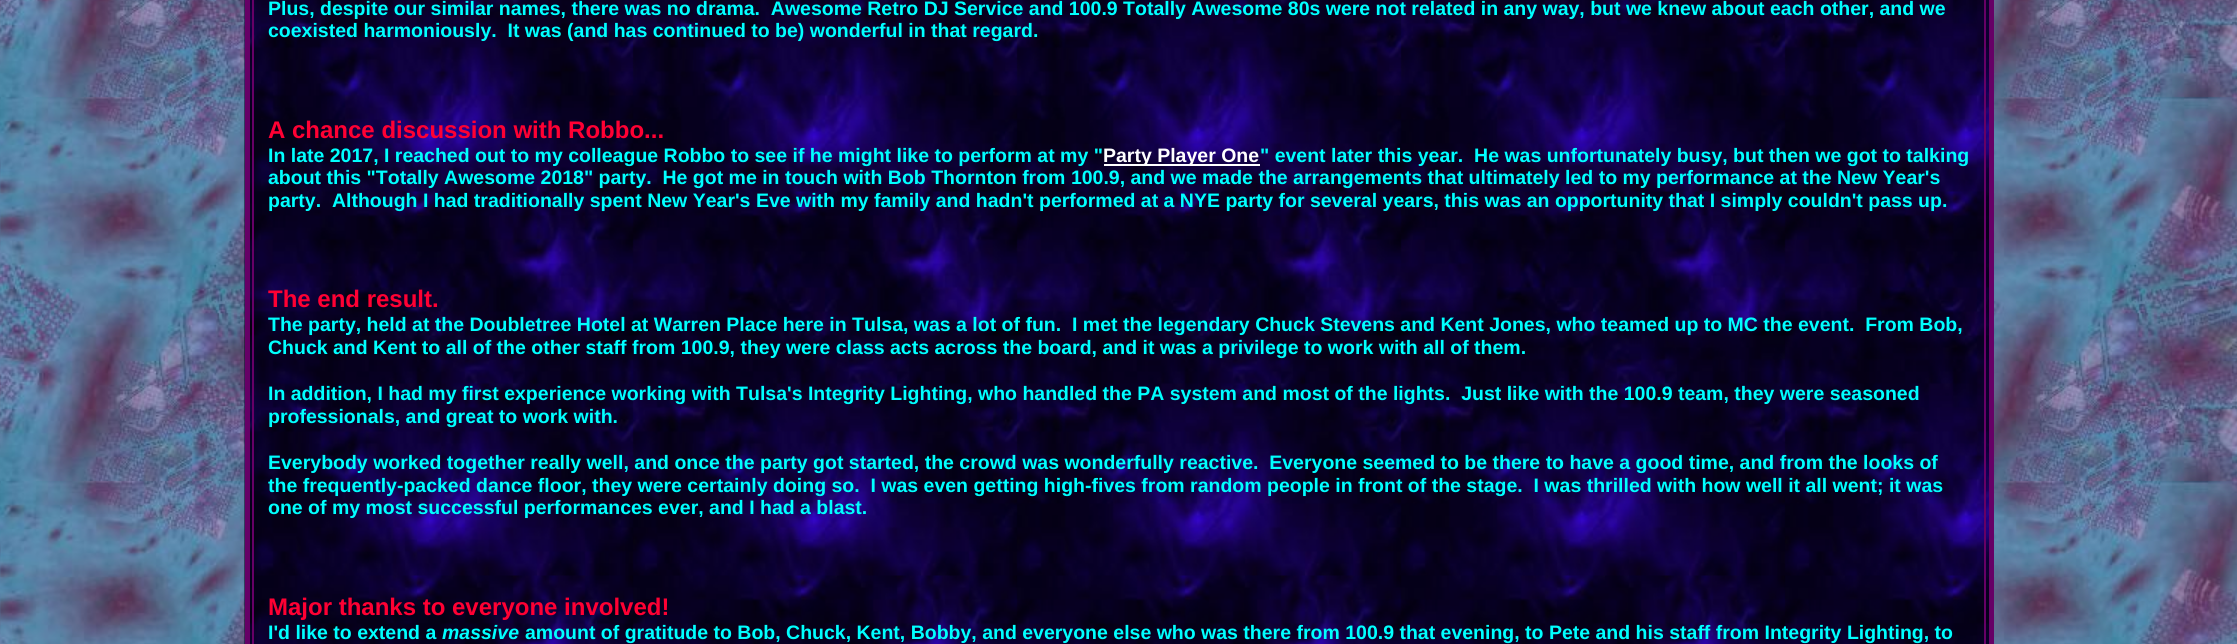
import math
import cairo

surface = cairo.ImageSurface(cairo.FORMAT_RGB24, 2237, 644)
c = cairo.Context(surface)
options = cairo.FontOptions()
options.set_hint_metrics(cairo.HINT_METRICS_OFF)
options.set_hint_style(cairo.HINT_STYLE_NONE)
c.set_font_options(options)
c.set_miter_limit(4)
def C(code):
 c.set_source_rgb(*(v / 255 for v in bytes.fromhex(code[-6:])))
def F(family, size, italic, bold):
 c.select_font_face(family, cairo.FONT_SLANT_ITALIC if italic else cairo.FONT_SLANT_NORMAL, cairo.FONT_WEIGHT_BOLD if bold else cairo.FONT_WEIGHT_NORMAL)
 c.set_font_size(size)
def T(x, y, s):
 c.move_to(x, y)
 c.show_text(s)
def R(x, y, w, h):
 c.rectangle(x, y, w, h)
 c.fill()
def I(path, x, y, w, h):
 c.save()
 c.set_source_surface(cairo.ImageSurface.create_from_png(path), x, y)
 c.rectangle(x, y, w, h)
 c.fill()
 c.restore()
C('ffffff')
c.paint()
I('1.png',0,0,2237,644)
I('2.png',244,0,1745,644)
c.rectangle(247.5,-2.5,1744,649)
C('660066')
c.set_line_width(5)
c.stroke()
c.rectangle(253,-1,1732,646)
c.set_line_width(2)
c.stroke()
F('Liberation Sans',19.5,0,1)
C('00ffff')
T(268,15,'Plus, despite our similar names, there was no drama.  Awesome Retro DJ Service and 100.9 Totally Awesome 80s were not related in any way, but we knew about each other, and we')
T(268,37,'coexisted harmoniously.  It was (and has continued to be) wonderful in that regard.')
F('Liberation Sans',24,0,1)
C('ff0033')
T(268,138,'A chance discussion with Robbo...')
F('Liberation Sans',19.5,0,1)
C('00ffff')
T(268,162,'In late 2017, I reached out to my colleague Robbo to see if he might like to perform at my "')
C('ffffff')
R(1104,164,156,2)
T(1103,162,'Party Player One')
C('00ffff')
T(1260,162,'" event later this year.  He was unfortunately busy, but then we got to talking')
T(268,184,'about this "Totally Awesome 2018" party.  He got me in touch with Bob Thornton from 100.9, and we made the arrangements that ultimately led to my performance at the New Year\'s')
T(268,207,'party.  Although I had traditionally spent New Year\'s Eve with my family and hadn\'t performed at a NYE party for several years, this was an opportunity that I simply couldn\'t pass up.')
F('Liberation Sans',24,0,1)
C('ff0033')
T(268,307,'The end result.')
F('Liberation Sans',19.5,0,1)
C('00ffff')
T(268,331,'The party, held at the Doubletree Hotel at Warren Place here in Tulsa, was a lot of fun.  I met the legendary Chuck Stevens and Kent Jones, who teamed up to MC the event.  From Bob,')
T(268,354,'Chuck and Kent to all of the other staff from 100.9, they were class acts across the board, and it was a privilege to work with all of them.')
T(268,400,'In addition, I had my first experience working with Tulsa\'s Integrity Lighting, who handled the PA system and most of the lights.  Just like with the 100.9 team, they were seasoned')
T(268,423,'professionals, and great to work with.')
T(268,469,'Everybody worked together really well, and once the party got started, the crowd was wonderfully reactive.  Everyone seemed to be there to have a good time, and from the looks of')
T(268,492,'the frequently-packed dance floor, they were certainly doing so.  I was even getting high-fives from random people in front of the stage.  I was thrilled with how well it all went; it was')
T(268,514,'one of my most successful performances ever, and I had a blast.')
F('Liberation Sans',24,0,1)
C('ff0033')
T(268,615,'Major thanks to everyone involved!')
F('Liberation Sans',19.5,0,1)
C('00ffff')
T(268,639,'I\'d like to extend a')
F('Liberation Sans',19.5,1,1)
T(442,639,'massive')
F('Liberation Sans',19.5,0,1)
T(525,639,'amount of gratitude to Bob, Chuck, Kent, Bobby, and everyone else who was there from 100.9 that evening, to Pete and his staff from Integrity Lighting, to')
surface.write_to_png('o.png')
